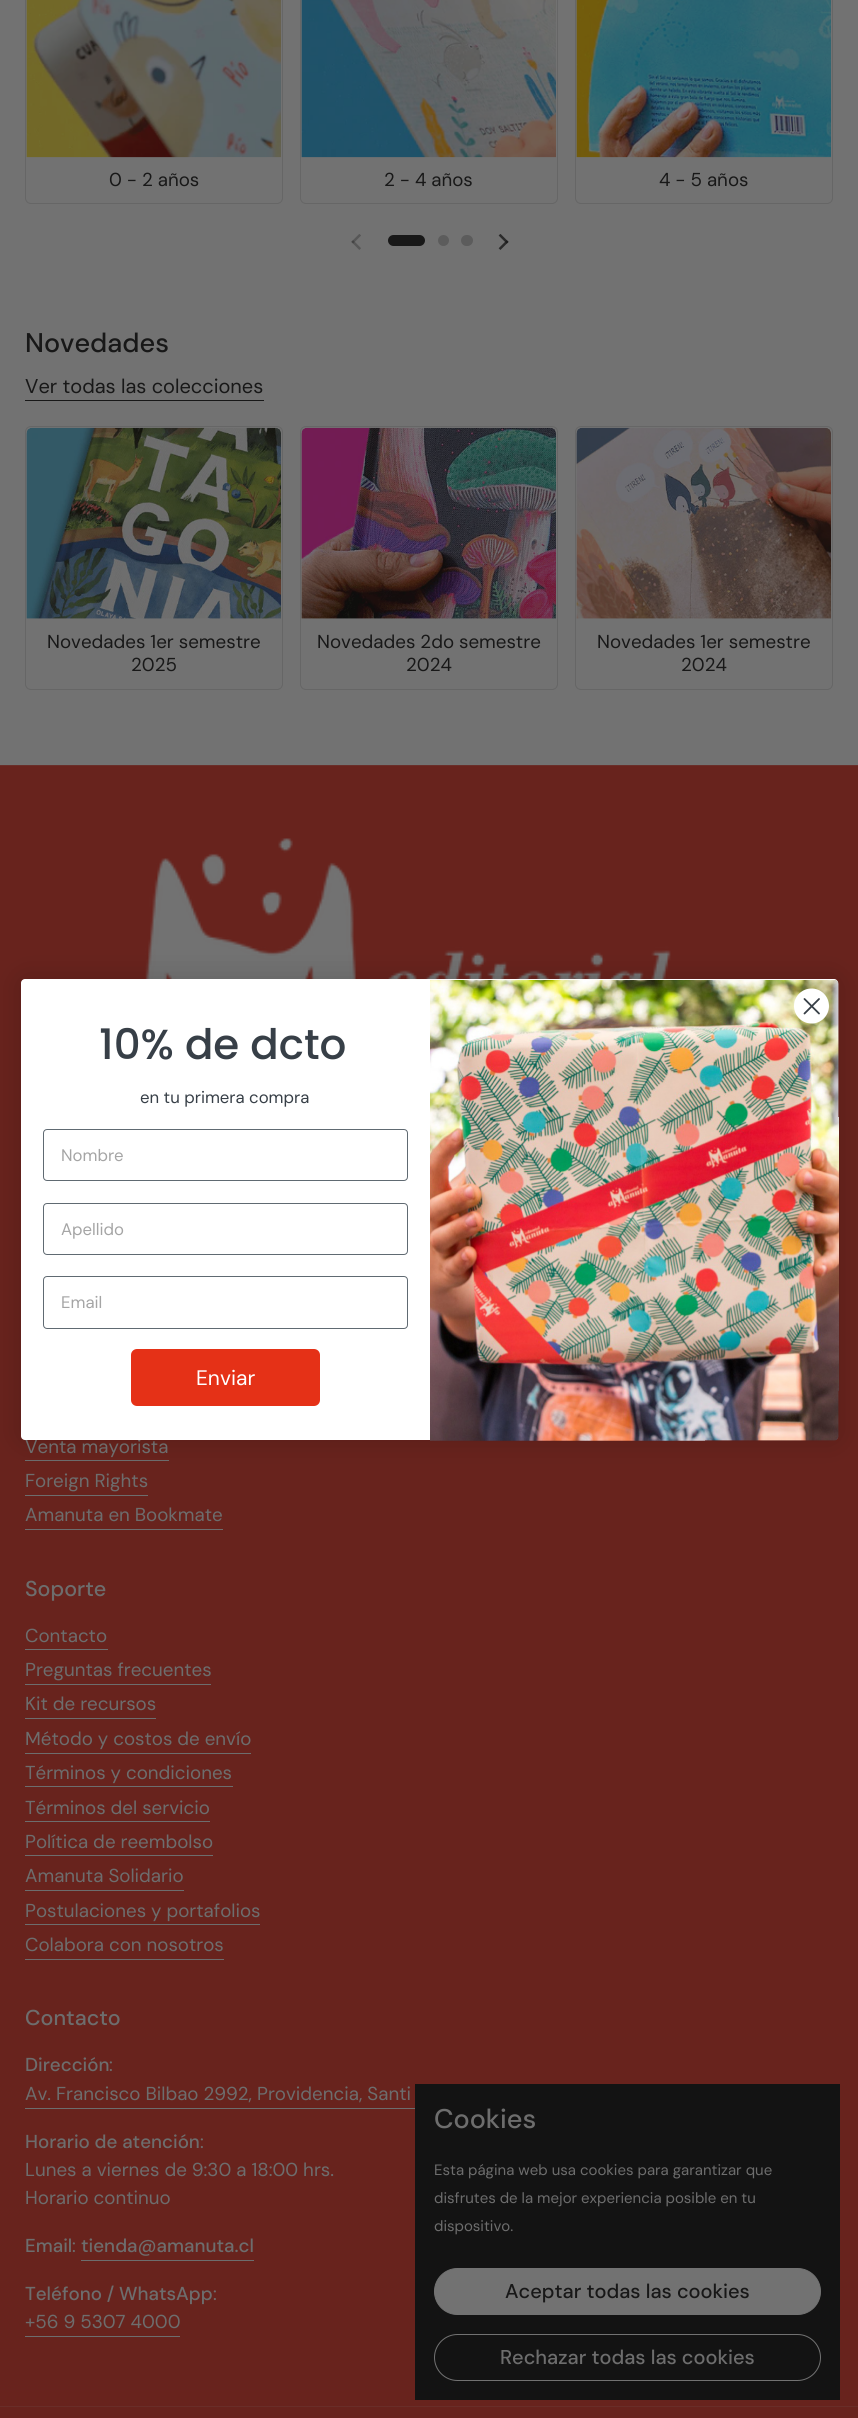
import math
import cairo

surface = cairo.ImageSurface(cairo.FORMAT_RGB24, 858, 2418)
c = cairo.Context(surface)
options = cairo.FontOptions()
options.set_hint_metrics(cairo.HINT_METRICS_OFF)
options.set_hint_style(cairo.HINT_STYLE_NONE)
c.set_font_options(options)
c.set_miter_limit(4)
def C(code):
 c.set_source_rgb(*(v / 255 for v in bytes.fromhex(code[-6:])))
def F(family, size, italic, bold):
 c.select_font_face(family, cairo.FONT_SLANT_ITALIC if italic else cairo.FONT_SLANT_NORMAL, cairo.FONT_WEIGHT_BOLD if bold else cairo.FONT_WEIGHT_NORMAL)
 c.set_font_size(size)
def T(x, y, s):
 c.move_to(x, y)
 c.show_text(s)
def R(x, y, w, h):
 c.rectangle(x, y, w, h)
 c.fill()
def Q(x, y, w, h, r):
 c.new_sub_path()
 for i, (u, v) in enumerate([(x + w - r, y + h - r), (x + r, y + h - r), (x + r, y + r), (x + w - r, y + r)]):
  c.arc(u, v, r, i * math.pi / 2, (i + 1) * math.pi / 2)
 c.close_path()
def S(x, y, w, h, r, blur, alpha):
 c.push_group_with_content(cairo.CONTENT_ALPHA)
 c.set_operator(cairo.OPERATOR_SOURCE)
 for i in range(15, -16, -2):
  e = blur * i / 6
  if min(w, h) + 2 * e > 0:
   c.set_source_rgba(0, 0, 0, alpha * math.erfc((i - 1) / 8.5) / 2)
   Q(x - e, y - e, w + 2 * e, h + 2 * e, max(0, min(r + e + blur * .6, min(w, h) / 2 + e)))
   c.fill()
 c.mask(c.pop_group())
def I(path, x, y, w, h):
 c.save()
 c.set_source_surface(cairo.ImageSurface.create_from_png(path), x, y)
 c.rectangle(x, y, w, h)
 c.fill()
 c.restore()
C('727272')
c.paint()
Q(25.5,-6.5,257,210,5.5)
C('666666')
c.set_line_width(1)
c.stroke()
I('1.png',26,0,255,158)
F('DM Sans',18.75,0,0)
C('181818')
T(109,186,'0 - 2 años')
Q(300.5,-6.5,257,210,5.5)
C('666666')
c.stroke()
I('2.png',301,0,255,158)
C('181818')
T(384,186,'2 - 4 años')
Q(575.5,-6.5,257,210,5.5)
C('666666')
c.stroke()
I('3.png',576,0,255,158)
C('181818')
T(659,186,'4 - 5 años')
I('4.png',351,234,10,16)
Q(388,235,37,11,5.5)
c.fill()
C('5c5c5c')
c.arc(443.5,240.5,5.5,0,2 * math.pi)
c.fill()
Q(461,235,12,11,5.5)
c.fill()
I('5.png',498,234,11,16)
F('DM Sans Medium',27,0,0)
C('181818')
T(25,352,'Novedades')
F('DM Sans',20,0,0)
T(25,393,'Ver todas las colecciones')
R(25,400,239,1)
Q(25.5,426.5,257,263,5.5)
C('666666')
c.stroke()
I('6.png',26,427,255,192)
F('DM Sans',18.75,0,0)
C('181818')
T(47,648,'Novedades 1er semestre')
T(131,671,'2025')
Q(300.5,426.5,257,263,5.5)
C('666666')
c.stroke()
I('7.png',301,427,255,192)
C('181818')
T(317,648,'Novedades 2do semestre')
T(406,671,'2024')
Q(575.5,426.5,257,263,5.5)
C('666666')
c.stroke()
I('8.png',576,427,255,192)
C('181818')
T(597,648,'Novedades 1er semestre')
T(681,671,'2024')
C('68231d')
R(0,766,858,1652)
I('10.png',145,838,526,141)
C('6d6d6d')
R(25,1460,144,1)
C('000000')
S(21,979,817,461,4,15.5,.15)
C('6d6d6d')
T(25,1453,'Venta mayorista')
C('ffffff')
Q(21,979,817,461,4)
c.fill()
I('9.png',430,980,409,461)
c.arc(811.5,1006,17.5,0,2 * math.pi)
c.fill()
c.new_path()
c.move_to(804.5,999)
c.line_to(819,1013.5)
c.move_to(804.5,1013.5)
c.line_to(819,999)
c.close_path()
C('373f47')
c.set_line_width(1.8)
c.set_line_cap(cairo.LINE_CAP_ROUND)
c.set_line_join(cairo.LINE_JOIN_ROUND)
c.stroke()
F('Poppins Medium',42,0,0)
T(99,1059,'10% de dcto')
F('DM Sans',16.75,0,0)
T(140,1103,'en tu primera compra')
Q(43.5,1129.5,364,51,3.5)
C('606a72')
c.set_line_width(1)
c.set_line_cap(cairo.LINE_CAP_BUTT)
c.set_line_join(cairo.LINE_JOIN_MITER)
c.stroke()
C('a5a5a5')
T(61,1161,'Nombre')
Q(43.5,1203.5,364,51,3.5)
C('606a72')
c.stroke()
C('a5a5a5')
T(61,1235,'Apellido')
Q(43.5,1276.5,364,52,3.5)
C('606a72')
c.stroke()
C('a5a5a5')
T(61,1308,'Email')
C('e53117')
Q(131,1349,189,57,6)
c.fill()
F('DM Sans',21,0,0)
C('ffffff')
T(196,1385,'Enviar')
C('692e29')
R(0,765,858,1)
F('DM Sans',18.75,0,0)
C('6d6d6d')
T(25,1487,'Foreign Rights')
R(25,1495,123,1)
T(25,1521,'Amanuta en Bookmate')
R(25,1529,198,1)
F('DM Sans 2 Medium',21.5,0,0)
T(25,1596,'Soporte')
F('DM Sans',18.75,0,0)
T(25,1642,'Contacto')
R(25,1649,83,1)
T(25,1676,'Preguntas frecuentes')
R(25,1684,186,1)
T(25,1710,'Kit de recursos')
R(25,1718,131,1)
T(25,1745,'Método y costos de envío')
R(25,1753,226,1)
T(25,1779,'Términos y condiciones')
R(25,1786,208,1)
T(25,1814,'Términos del servicio')
R(25,1821,185,1)
T(25,1848,'Política de reembolso')
R(25,1855,188,1)
T(25,1882,'Amanuta Solidario')
R(25,1890,159,1)
T(25,1917,'Postulaciones y portafolios')
R(25,1924,235,1)
T(25,1951,'Colabora con nosotros')
R(25,1959,199,1)
F('DM Sans 2 Medium',21.5,0,0)
T(25,2025,'Contacto')
F('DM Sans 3 Medium',18.75,0,0)
T(25,2071,'Dirección')
F('DM Sans',18.75,0,0)
T(109,2071,':')
T(25,2100,'Av. Francisco Bilbao 2992, Providencia, Santi')
R(25,2108,390,1)
F('DM Sans 3 Medium',18.75,0,0)
T(25,2148,'Horario de atención')
F('DM Sans',18.75,0,0)
T(200,2148,':')
T(25,2176,'Lunes a viernes de 9:30 a 18:00 hrs.')
T(25,2204,'Horario continuo')
F('DM Sans 3 Medium',18.75,0,0)
T(25,2252,'Email')
F('DM Sans',18.75,0,0)
T(72,2252,':')
F('DM Sans 3 Medium',18.75,0,0)
T(81,2252,'tienda@amanuta.cl')
R(81,2260,173,1)
T(25,2300,'Teléfono / WhatsApp')
F('DM Sans',18.75,0,0)
T(213,2300,':')
T(25,2328,'+56 9 5307 4000')
R(25,2336,155,1)
C('692e29')
R(0,2406,858,1)
C('131313')
R(415,2084,425,316)
F('DM Sans Medium',27,0,0)
C('6d6d6d')
T(434,2128,'Cookies')
F('DM Sans',15,0,0)
T(434,2175,'Esta página web usa cookies para garantizar que')
T(434,2203,'disfrutes de la mejor experiencia posible en tu')
T(434,2231,'dispositivo.')
C('727272')
Q(434.5,2268.5,386,46,23)
c.fill_preserve()
c.stroke()
F('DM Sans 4 Medium',20,0,0)
C('181818')
T(505,2298,'Aceptar todas las cookies')
Q(434.5,2334.5,386,46,23)
C('727272')
c.stroke()
C('6d6d6d')
T(500,2364,'Rechazar todas las cookies')
surface.write_to_png('o.png')
